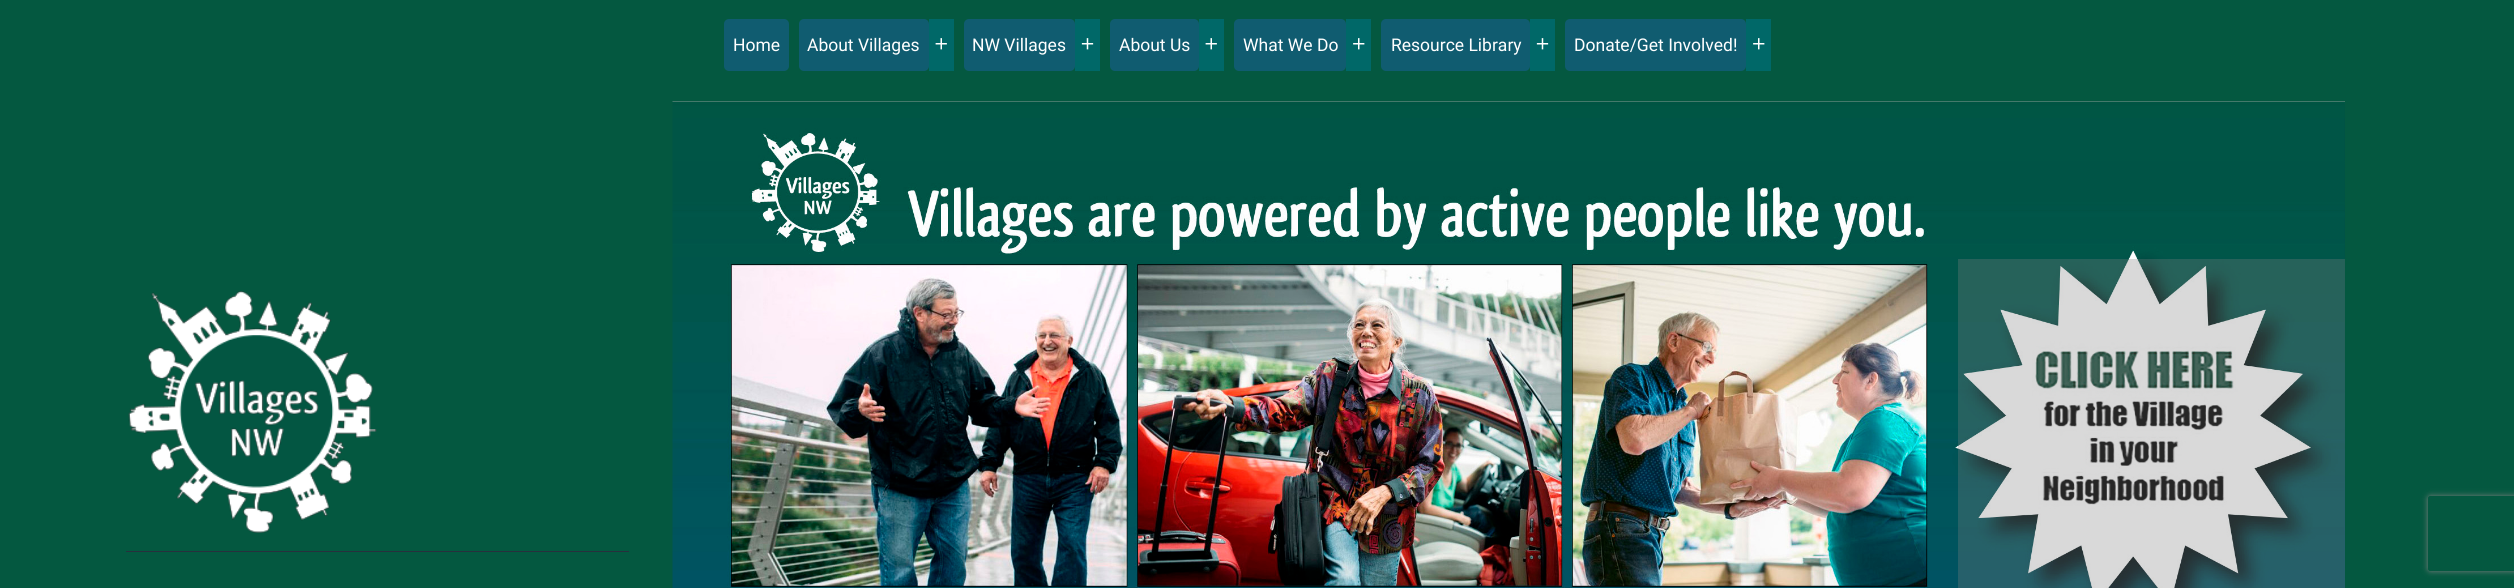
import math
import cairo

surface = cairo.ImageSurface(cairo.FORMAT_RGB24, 2514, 588)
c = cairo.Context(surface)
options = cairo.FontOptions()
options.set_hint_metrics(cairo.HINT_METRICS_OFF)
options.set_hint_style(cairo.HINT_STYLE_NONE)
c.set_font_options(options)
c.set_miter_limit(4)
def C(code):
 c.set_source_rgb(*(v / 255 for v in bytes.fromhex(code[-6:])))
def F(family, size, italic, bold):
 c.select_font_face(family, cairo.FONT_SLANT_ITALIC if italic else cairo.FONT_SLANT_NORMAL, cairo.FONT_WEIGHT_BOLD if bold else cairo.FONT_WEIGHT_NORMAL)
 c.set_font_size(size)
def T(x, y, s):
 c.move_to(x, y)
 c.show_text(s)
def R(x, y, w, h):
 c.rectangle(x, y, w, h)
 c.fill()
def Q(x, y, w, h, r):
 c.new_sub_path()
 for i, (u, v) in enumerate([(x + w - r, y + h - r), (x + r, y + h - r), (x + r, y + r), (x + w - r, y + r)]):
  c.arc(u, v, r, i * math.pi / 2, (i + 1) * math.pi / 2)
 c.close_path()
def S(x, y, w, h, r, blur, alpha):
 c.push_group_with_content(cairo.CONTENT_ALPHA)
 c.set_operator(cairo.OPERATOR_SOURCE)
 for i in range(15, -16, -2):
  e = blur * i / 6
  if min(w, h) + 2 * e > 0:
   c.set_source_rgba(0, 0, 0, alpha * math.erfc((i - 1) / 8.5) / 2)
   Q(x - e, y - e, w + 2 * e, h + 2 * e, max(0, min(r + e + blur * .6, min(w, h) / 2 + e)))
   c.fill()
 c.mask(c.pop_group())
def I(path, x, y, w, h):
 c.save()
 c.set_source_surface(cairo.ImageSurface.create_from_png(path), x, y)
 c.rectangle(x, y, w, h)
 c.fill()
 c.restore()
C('045840')
c.paint()
C('105c70')
Q(724,19,65,52,5)
c.fill()
F('Roboto',17.5,0,0)
C('ffffff')
T(733,51,'Home')
C('105c70')
Q(799,19,130,52,5)
c.fill()
C('ffffff')
T(807,51,'About Villages')
C('006868')
R(929,19,25,52)
I('1.png',935,38,12,12)
C('105c70')
Q(964,19,111,52,5)
c.fill()
C('ffffff')
T(972,51,'NW Villages')
C('006868')
R(1075,19,25,52)
I('2.png',1081,38,13,12)
C('105c70')
Q(1110,19,89,52,5)
c.fill()
C('ffffff')
T(1119,51,'About Us')
C('006868')
R(1199,19,25,52)
I('1.png',1205,38,12,12)
C('105c70')
Q(1234,19,112,52,5)
c.fill()
C('ffffff')
T(1243,51,'What We Do')
C('006868')
R(1346,19,25,52)
I('3.png',1353,38,12,12)
C('105c70')
Q(1381,19,149,52,5)
c.fill()
C('ffffff')
T(1391,51,'Resource Library')
C('006868')
R(1530,19,25,52)
I('2.png',1536,38,13,12)
C('105c70')
Q(1565,19,181,52,5)
c.fill()
C('ffffff')
T(1574,51,'Donate/Get Involved!')
C('006868')
R(1746,19,25,52)
I('3.png',1753,38,12,12)
C('28303d')
R(126,551,503,1)
I('4.png',128,291,249,242)
I('5.png',672,101,1673,487)
c.set_source_rgba(0.502,0.502,0.502,0.3)
R(1958,259,387,329)
c.save()
c.set_fill_rule(cairo.FILL_RULE_EVEN_ODD)
c.new_path()
c.move_to(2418,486)
c.line_to(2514,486)
c.line_to(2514,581)
c.line_to(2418,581)
c.close_path()
c.move_to(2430.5,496)
c.line_to(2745.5,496)
c.curve_to(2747,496,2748,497,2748,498.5)
c.line_to(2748,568.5)
c.curve_to(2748,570,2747,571,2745.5,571)
c.line_to(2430.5,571)
c.curve_to(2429,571,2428,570,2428,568.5)
c.line_to(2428,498.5)
c.curve_to(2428,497,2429,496,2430.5,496)
c.close_path()
c.clip()
C('808080')
S(2428,496,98,75,2.5,3,1)
c.restore()
surface.write_to_png('o.png')
